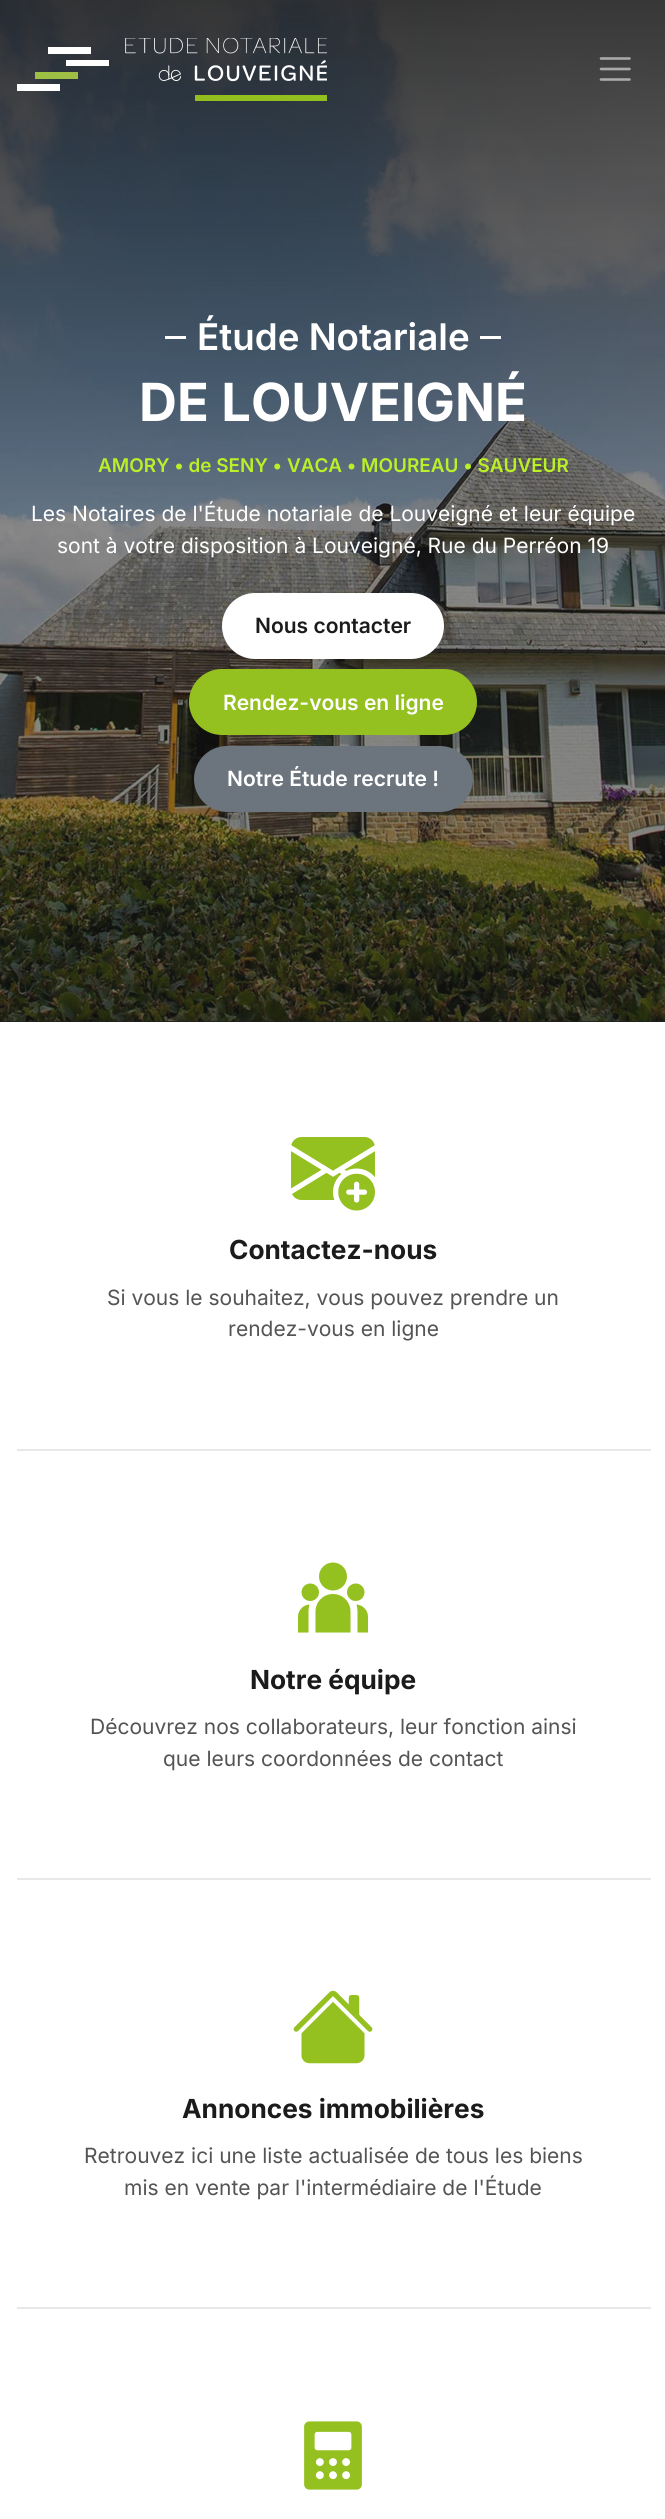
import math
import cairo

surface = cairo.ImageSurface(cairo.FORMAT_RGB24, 665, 2519)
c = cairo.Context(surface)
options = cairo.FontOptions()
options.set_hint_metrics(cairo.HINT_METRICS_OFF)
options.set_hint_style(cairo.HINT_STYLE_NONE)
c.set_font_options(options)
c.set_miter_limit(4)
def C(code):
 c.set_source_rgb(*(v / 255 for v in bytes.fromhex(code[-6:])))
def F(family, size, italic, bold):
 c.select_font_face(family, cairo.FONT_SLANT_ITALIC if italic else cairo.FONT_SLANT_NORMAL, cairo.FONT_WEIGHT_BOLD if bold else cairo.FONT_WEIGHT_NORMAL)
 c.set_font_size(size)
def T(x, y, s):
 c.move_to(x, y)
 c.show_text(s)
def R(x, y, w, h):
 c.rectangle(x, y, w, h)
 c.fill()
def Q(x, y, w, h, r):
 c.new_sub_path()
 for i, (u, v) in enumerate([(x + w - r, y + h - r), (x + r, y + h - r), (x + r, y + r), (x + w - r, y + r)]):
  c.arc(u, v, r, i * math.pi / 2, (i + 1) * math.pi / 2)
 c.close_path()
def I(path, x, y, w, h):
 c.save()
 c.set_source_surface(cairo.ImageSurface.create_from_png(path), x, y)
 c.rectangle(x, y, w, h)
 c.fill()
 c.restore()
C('1b1b1b')
c.paint()
I('2.png',0,0,665,1022)
I('1.png',17,38,310,63)
c.new_path()
c.move_to(601,58.5)
c.line_to(629.5,58.5)
c.move_to(601,69)
c.line_to(629.5,69)
c.move_to(601,79.5)
c.line_to(629.5,79.5)
c.set_source_rgba(1,1,1,0.55)
c.set_line_width(2.6)
c.set_line_cap(cairo.LINE_CAP_ROUND)
c.stroke()
C('ffffff')
R(165,336,21,3)
F('Inter SemiBold',36.75,0,0)
T(197,350,'Étude Notariale')
R(480,336,21,3)
F('Inter',52.5,0,1)
T(139,421,'DE LOUVEIGNÉ')
F('Inter SemiBold',18.9,0,0)
C('b9f028')
T(98,472,'AMORY • de SENY • VACA • MOUREAU • SAUVEUR')
F('Inter',21,0,0)
C('ffffff')
T(31,521,'Les Notaires de l\'Étude notariale de Louveigné et leur équipe')
T(57,553,'sont à votre disposition à Louveigné, Rue du Perréon 19')
Q(223,594,220,64,32)
c.fill_preserve()
c.set_line_width(2)
c.set_line_cap(cairo.LINE_CAP_BUTT)
c.stroke()
F('Inter SemiBold',21,0,0)
C('1b1b1b')
T(255,633,'Nous contacter')
C('94c020')
Q(189,669,288,66,33)
c.fill()
C('ffffff')
T(223,710,'Rendez-vous en ligne')
C('6c757d')
Q(195,747,277,64,32)
c.fill_preserve()
c.stroke()
C('ffffff')
T(227,786,'Notre Étude recrute !')
R(0,1022,665,1497)
C('e8e8e8')
R(17,1449,634,2)
I('3.png',291,1137,84,74)
F('Inter',26.25,0,1)
C('1b1b1b')
T(229,1259,'Contactez-nous')
F('Inter',21,0,0)
C('545454')
T(107,1305,'Si vous le souhaitez, vous pouvez prendre un')
T(228,1336,'rendez-vous en ligne')
C('e8e8e8')
R(17,1878,634,2)
I('4.png',298,1562,70,71)
F('Inter',26.25,0,1)
C('1b1b1b')
T(250,1689,'Notre équipe')
F('Inter',21,0,0)
C('545454')
T(90,1734,'Découvrez nos collaborateurs, leur fonction ainsi')
T(163,1766,'que leurs coordonnées de contact')
C('e8e8e8')
R(17,2307,634,2)
I('5.png',293,1990,80,74)
F('Inter',26.25,0,1)
C('1b1b1b')
T(182,2118,'Annonces immobilières')
F('Inter',21,0,0)
C('545454')
T(84,2163,'Retrouvez ici une liste actualisée de tous les biens')
T(124,2195,'mis en vente par l\'intermédiaire de l\'Étude')
I('6.png',304,2421,58,69)
surface.write_to_png('o.png')
